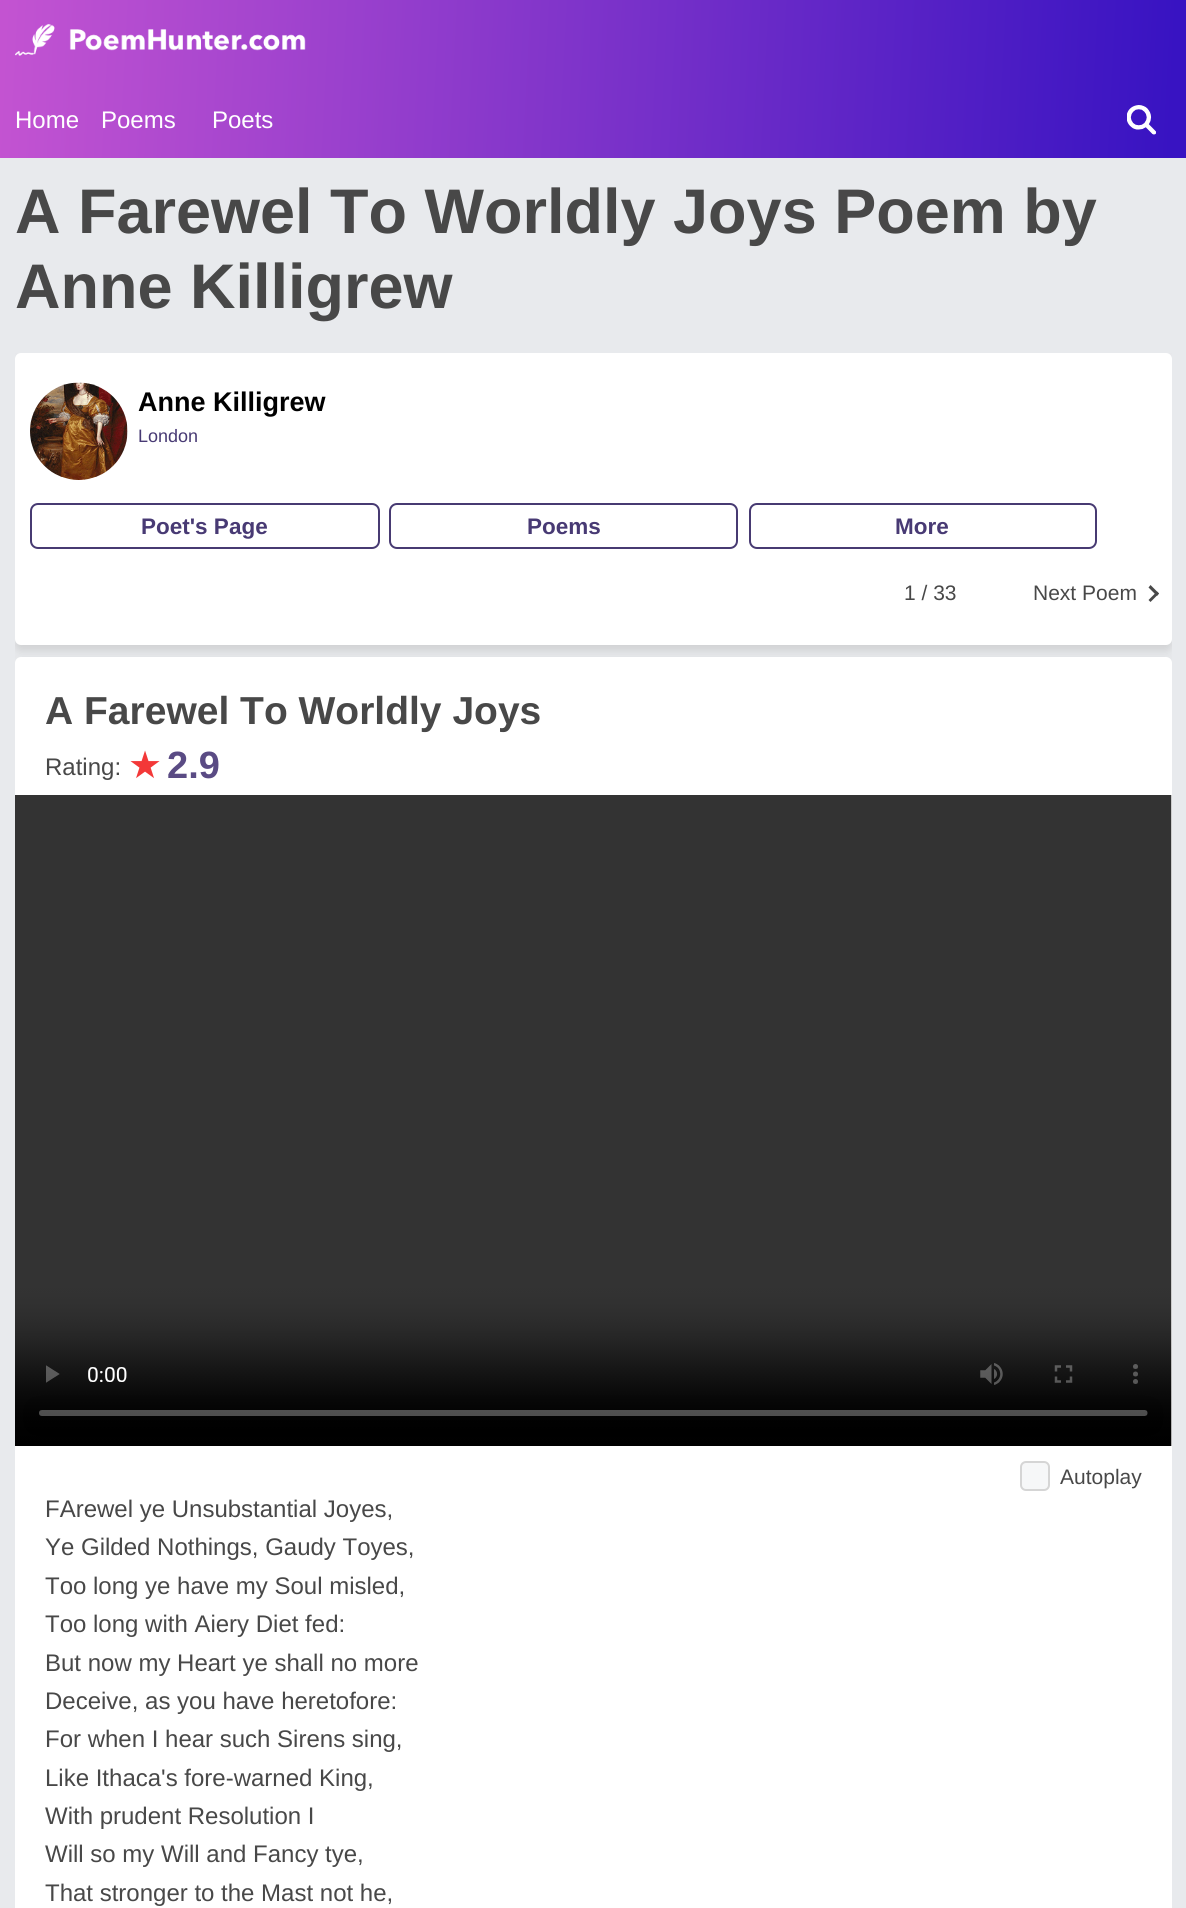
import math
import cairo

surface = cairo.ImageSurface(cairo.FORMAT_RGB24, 1186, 1908)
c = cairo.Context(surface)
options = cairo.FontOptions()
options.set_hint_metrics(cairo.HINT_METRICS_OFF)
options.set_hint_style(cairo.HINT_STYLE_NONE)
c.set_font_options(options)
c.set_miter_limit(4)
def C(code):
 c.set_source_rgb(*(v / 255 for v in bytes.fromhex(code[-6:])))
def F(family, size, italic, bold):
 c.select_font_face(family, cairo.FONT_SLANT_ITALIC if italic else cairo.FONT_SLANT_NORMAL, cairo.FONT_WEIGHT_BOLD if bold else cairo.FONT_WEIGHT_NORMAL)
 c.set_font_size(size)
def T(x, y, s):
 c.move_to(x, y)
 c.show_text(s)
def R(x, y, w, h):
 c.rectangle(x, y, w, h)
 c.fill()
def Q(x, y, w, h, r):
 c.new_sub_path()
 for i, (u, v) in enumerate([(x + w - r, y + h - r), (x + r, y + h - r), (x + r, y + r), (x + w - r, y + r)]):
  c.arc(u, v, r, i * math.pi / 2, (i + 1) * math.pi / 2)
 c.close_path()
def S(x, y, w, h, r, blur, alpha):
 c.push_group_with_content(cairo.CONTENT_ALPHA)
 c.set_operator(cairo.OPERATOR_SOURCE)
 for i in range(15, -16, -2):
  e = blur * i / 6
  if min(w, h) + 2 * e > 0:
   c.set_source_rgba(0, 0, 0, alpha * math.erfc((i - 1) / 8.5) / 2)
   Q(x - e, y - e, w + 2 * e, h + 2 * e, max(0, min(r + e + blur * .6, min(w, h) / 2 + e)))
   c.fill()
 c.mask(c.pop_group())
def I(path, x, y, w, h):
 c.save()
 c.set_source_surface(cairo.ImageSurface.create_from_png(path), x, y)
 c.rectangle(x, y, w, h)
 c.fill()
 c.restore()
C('e8eaed')
c.paint()
gradient = cairo.LinearGradient(-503,21,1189,110)
gradient.add_color_stop_rgba(0,1,0.435,0.847,1)
gradient.add_color_stop_rgba(.99,0.22,0.075,0.761,1)
c.set_source(gradient)
R(0,0,1186,158)
I('1.png',15,24,291,32)
F('Liberation Sans',24,0,0)
C('ffffff')
T(15,128,'Home')
T(101,128,'Poems')
T(212,128,'Poets')
I('2.png',1127,105,29,30)
F('Liberation Sans',63,0,1)
C('484848')
T(15,233,'A Farewel To Worldly Joys Poem by')
T(15,308,'Anne Killigrew')
c.save()
c.rectangle(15,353,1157,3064)
c.clip()
C('b9b9b9')
S(15,359,1157,292,6,4.5,.5)
c.restore()
C('ffffff')
Q(15,353,1157,292,6)
c.fill()
I('3.png',30,382,98,98)
F('Liberation Sans',27,0,1)
C('000000')
T(138,411,'Anne Killigrew')
F('Liberation Sans',18,0,0)
C('483a74')
T(138,442,'London')
Q(31,504,348,44,7)
C('473a72')
c.stroke()
F('Liberation Sans',22.5,0,1)
C('483a74')
T(141,534,'Poet\'s Page')
Q(390,504,347,44,7)
C('473a72')
c.stroke()
C('483a74')
T(527,534,'Poems')
Q(750,504,346,44,7)
C('473a72')
c.stroke()
C('483a74')
T(895,534,'More')
F('Liberation Sans',21,0,0)
C('484848')
T(904,600,'1 / 33')
T(1033,600,'Next Poem')
c.new_path()
c.move_to(1148.5,587.5)
c.line_to(1150.5,585)
c.line_to(1159,593.5)
c.line_to(1157,596)
c.close_path()
c.fill()
c.new_path()
c.move_to(1148.5,600)
c.line_to(1157,591.5)
c.line_to(1159,593.5)
c.line_to(1150.5,602)
c.close_path()
c.fill()
c.save()
c.rectangle(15,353,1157,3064)
c.clip()
C('b9b9b9')
S(15,663,1157,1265,6,4.5,.5)
c.restore()
C('ffffff')
Q(15,657,1157,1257,6)
c.fill()
F('Liberation Sans',39,0,1)
C('484848')
T(45,724,'A Farewel To Worldly Joys')
F('Liberation Sans',24,0,0)
T(45,775,'Rating:')
F('DejaVu Sans',38,0,0)
C('f33838')
T(128,778,'★')
F('Liberation Sans',38,0,1)
C('5a4b84')
T(167,778,'2.9')
I('4.png',15,795,1157,651)
C('f6f7f8')
Q(1021,1462,28,28,5)
c.fill_preserve()
C('d5d5d5')
c.stroke()
F('Liberation Sans',21,0,0)
C('484848')
T(1060,1484,'Autoplay')
F('Liberation Sans',24,0,0)
T(45,1517,'FArewel ye Unsubstantial Joyes,')
T(45,1555,'Ye Gilded Nothings, Gaudy Toyes,')
T(45,1594,'Too long ye have my Soul misled,')
T(45,1632,'Too long with Aiery Diet fed:')
T(45,1671,'But now my Heart ye shall no more')
T(45,1709,'Deceive, as you have heretofore:')
T(45,1747,'For when I hear such Sirens sing,')
T(45,1786,'Like Ithaca\'s fore-warned King,')
T(45,1824,'With prudent Resolution I')
T(45,1862,'Will so my Will and Fancy tye,')
T(45,1901,'That stronger to the Mast not he,')
surface.write_to_png('o.png')
